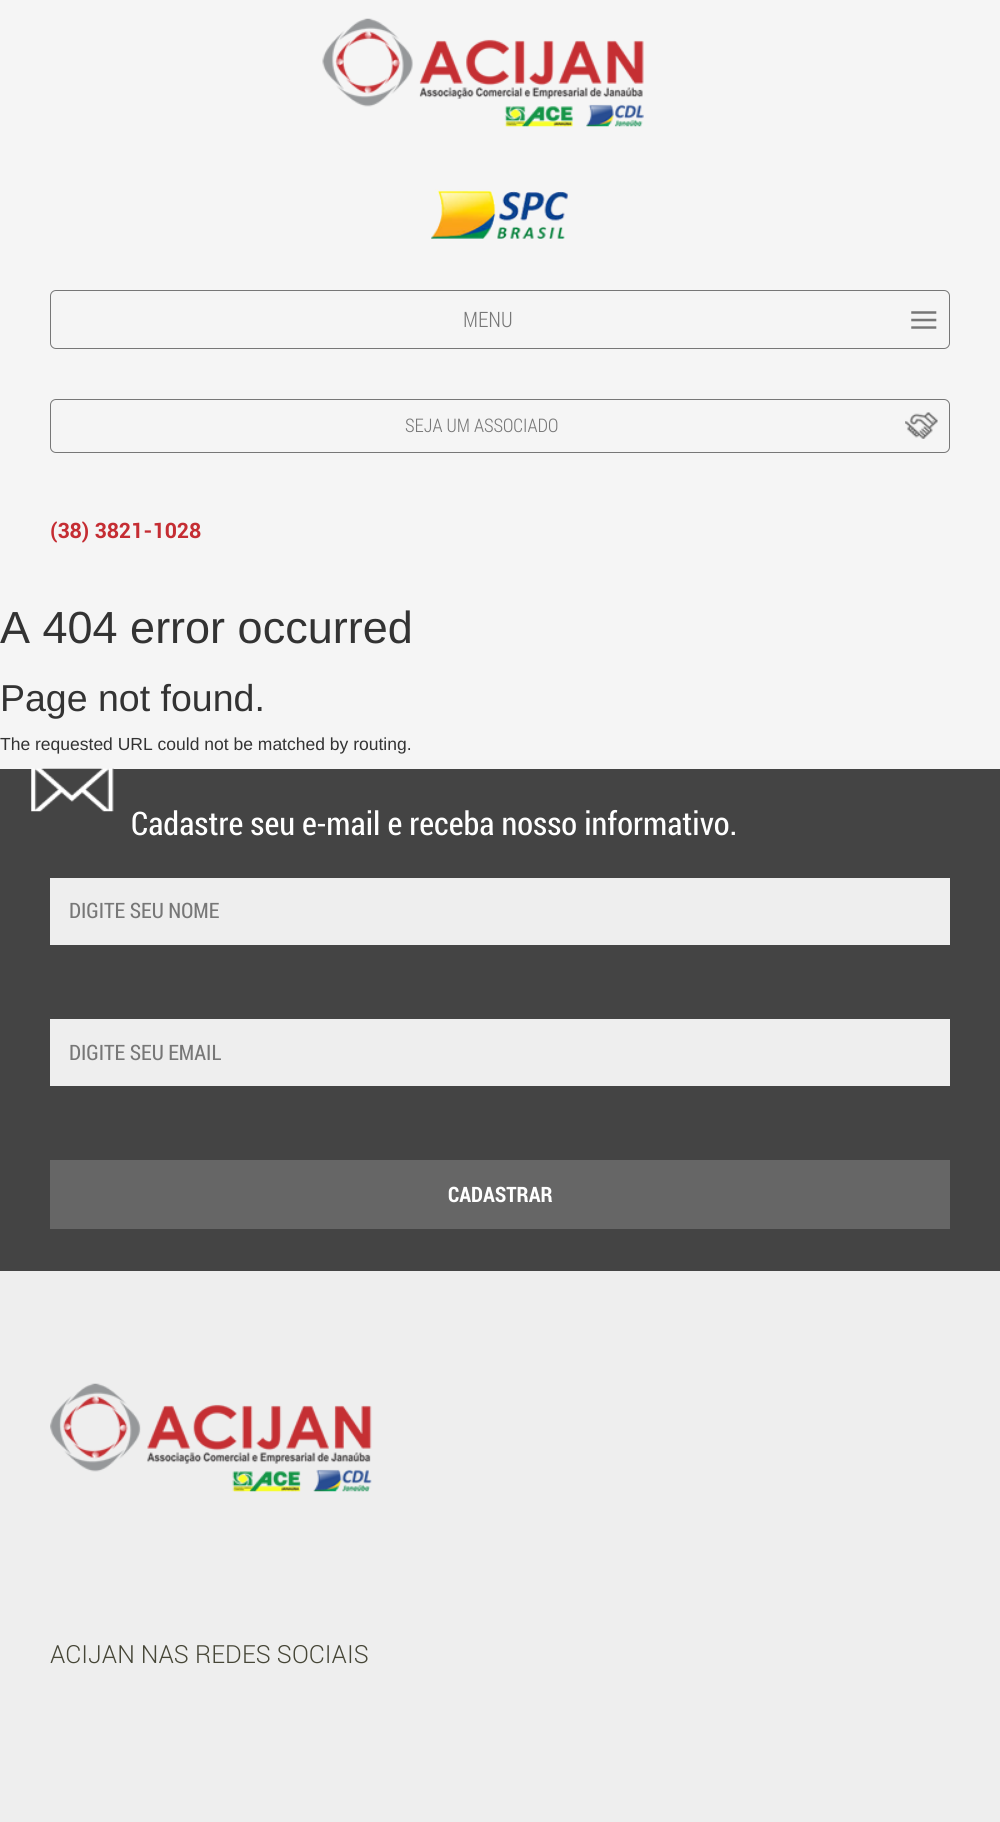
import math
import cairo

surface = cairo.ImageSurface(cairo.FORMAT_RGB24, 1000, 1822)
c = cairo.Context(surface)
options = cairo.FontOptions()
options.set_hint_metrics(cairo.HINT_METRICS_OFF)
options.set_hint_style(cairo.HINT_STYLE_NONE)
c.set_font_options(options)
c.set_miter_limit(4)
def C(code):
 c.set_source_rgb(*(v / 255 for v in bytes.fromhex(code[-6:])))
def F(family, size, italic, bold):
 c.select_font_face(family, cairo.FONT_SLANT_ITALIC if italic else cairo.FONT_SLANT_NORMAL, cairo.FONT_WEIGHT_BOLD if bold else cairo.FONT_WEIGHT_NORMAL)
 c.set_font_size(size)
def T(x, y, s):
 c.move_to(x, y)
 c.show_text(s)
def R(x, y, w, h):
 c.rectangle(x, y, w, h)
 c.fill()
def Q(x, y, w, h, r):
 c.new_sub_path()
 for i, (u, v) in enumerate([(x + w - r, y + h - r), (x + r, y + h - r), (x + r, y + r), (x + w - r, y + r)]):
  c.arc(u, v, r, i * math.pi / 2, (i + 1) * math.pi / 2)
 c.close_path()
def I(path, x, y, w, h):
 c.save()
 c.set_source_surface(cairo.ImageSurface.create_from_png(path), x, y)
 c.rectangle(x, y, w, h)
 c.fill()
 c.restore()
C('f5f5f5')
c.paint()
I('1.png',322,18,322,109)
I('2.png',431,189,138,51)
I('3.png',911,311,26,18)
Q(50.5,290.5,899,58,5.5)
C('777777')
c.set_line_width(1)
c.stroke()
F('Roboto Condensed Light',21.25,0,0)
T(463,327,'MENU')
I('4.png',905,412,33,27)
Q(50.5,399.5,899,53,5.5)
c.stroke()
F('Roboto Condensed Light',18.75,0,0)
T(405,432,'SEJA UM ASSOCIADO')
F('Roboto',21.25,0,1)
C('c52d33')
T(50,538,'(38) 3821-1028')
F('Liberation Sans',45,0,0)
C('333333')
T(0,643,'A 404 error occurred')
F('Liberation Sans',37.5,0,0)
T(0,711,'Page not found.')
F('Liberation Sans',17.5,0,0)
T(0,750,'The requested URL could not be matched by routing.')
C('444444')
R(0,769,1000,502)
I('5.png',31,768,83,44)
F('Roboto Condensed',32.5,0,0)
C('ffffff')
T(131,835,'Cadastre seu e-mail e receba nosso informativo.')
C('eeeeee')
R(50,878,900,67)
F('Roboto Condensed',21.25,0,0)
C('777777')
T(69,918,'DIGITE SEU NOME')
C('eeeeee')
R(50,1019,900,67)
C('777777')
T(69,1060,'DIGITE SEU EMAIL')
C('666666')
R(50,1160,900,69)
F('Roboto Condensed',21.25,0,1)
C('ffffff')
T(448,1202,'CADASTRAR')
C('eeeeee')
R(0,1271,1000,551)
I('6.png',50,1383,322,109)
F('Roboto Light',25,0,0)
C('464637')
T(50,1663,'ACIJAN NAS REDES SOCIAIS')
surface.write_to_png('o.png')
